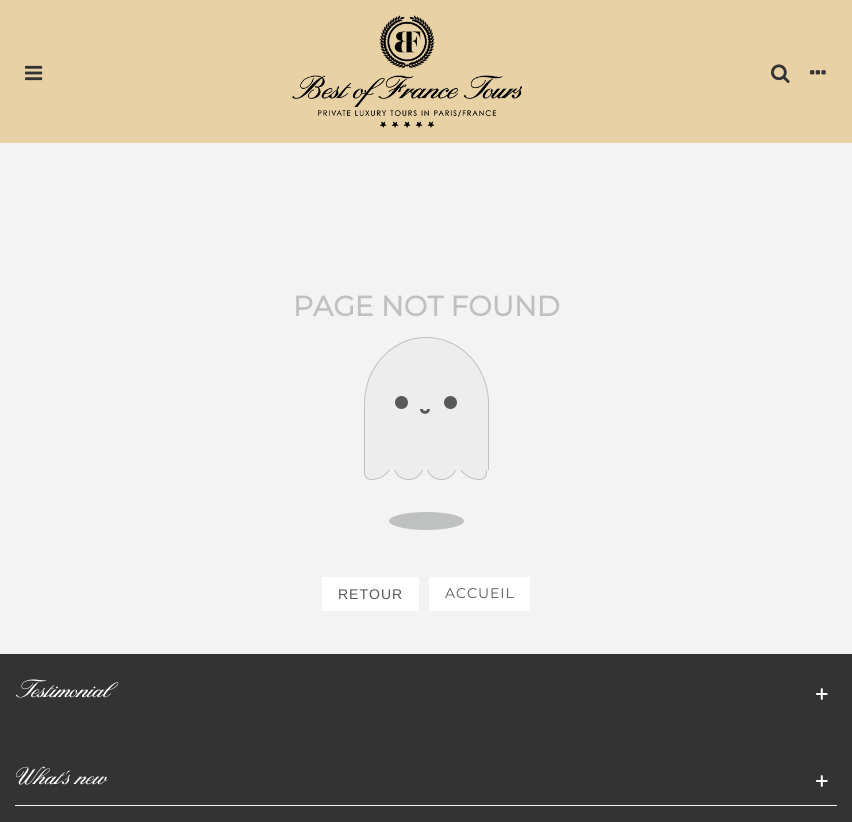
import math
import cairo

surface = cairo.ImageSurface(cairo.FORMAT_RGB24, 852, 822)
c = cairo.Context(surface)
options = cairo.FontOptions()
options.set_hint_metrics(cairo.HINT_METRICS_OFF)
options.set_hint_style(cairo.HINT_STYLE_NONE)
c.set_font_options(options)
c.set_miter_limit(4)
def C(code):
 c.set_source_rgb(*(v / 255 for v in bytes.fromhex(code[-6:])))
def F(family, size, italic, bold):
 c.select_font_face(family, cairo.FONT_SLANT_ITALIC if italic else cairo.FONT_SLANT_NORMAL, cairo.FONT_WEIGHT_BOLD if bold else cairo.FONT_WEIGHT_NORMAL)
 c.set_font_size(size)
def T(x, y, s):
 c.move_to(x, y)
 c.show_text(s)
def L(x, y, s, letter, word):
 c.move_to(x, y)
 for ch in s:
  c.show_text(ch)
  c.rel_move_to(letter + word * (ch == ' '), 0)
def R(x, y, w, h):
 c.rectangle(x, y, w, h)
 c.fill()
def I(path, x, y, w, h):
 c.save()
 c.set_source_surface(cairo.ImageSurface.create_from_png(path), x, y)
 c.rectangle(x, y, w, h)
 c.fill()
 c.restore()
C('f3f3f3')
c.paint()
C('e8d1a4')
R(0,0,852,143)
I('1.png',25,65,18,16)
I('2.png',292,15,230,113)
I('3.png',771,64,19,19)
I('4.png',810,70,16,5)
F('Montserrat',28,0,1)
C('bfc0c0')
T(293,316,'PAGE NOT FOUND')
C('ededed')
c.new_path()
c.move_to(364.5,450.5)
c.line_to(393.5,450.5)
c.line_to(393.5,457)
c.curve_to(393.5,469.5,383.5,479.5,371,479.5)
c.curve_to(367.5,479.5,364.5,476.5,364.5,473)
c.close_path()
c.fill_preserve()
C('bfc0c0')
c.set_line_width(1)
c.stroke()
C('ededed')
c.new_path()
c.move_to(393.5,450.5)
c.line_to(423.5,450.5)
c.line_to(423.5,464.5)
c.curve_to(423.5,473,417,479.5,408.5,479.5)
c.curve_to(400,479.5,393.5,473,393.5,464.5)
c.close_path()
c.fill_preserve()
C('bfc0c0')
c.stroke()
C('ededed')
c.new_path()
c.move_to(426.5,450.5)
c.line_to(456.5,450.5)
c.line_to(456.5,464.5)
c.curve_to(456.5,473,450,479.5,441.5,479.5)
c.curve_to(433,479.5,426.5,473,426.5,464.5)
c.close_path()
c.fill_preserve()
C('bfc0c0')
c.stroke()
C('ededed')
c.new_path()
c.move_to(456,450)
c.line_to(487,450)
c.line_to(487,473)
c.curve_to(487,477,484,480,480,480)
c.curve_to(466.5,480,456,469.5,456,457)
c.close_path()
c.fill()
c.new_path()
c.move_to(456.5,450.5)
c.line_to(486.5,450.5)
c.line_to(486.5,473)
c.curve_to(486.5,476.5,483.5,479.5,480,479.5)
c.curve_to(467,479.5,456.5,469.5,456.5,457)
c.close_path()
C('bfc0c0')
c.stroke()
C('ededed')
c.new_path()
c.move_to(426,337)
c.curve_to(461,337,489,367,489,404)
c.line_to(489,470)
c.line_to(364,470)
c.line_to(364,404)
c.curve_to(364,367,392,337,426,337)
c.close_path()
c.fill()
C('bfc0c0')
c.set_fill_rule(cairo.FILL_RULE_EVEN_ODD)
c.new_path()
c.move_to(426,337)
c.curve_to(461,337,489,367,489,404)
c.line_to(489,470)
c.line_to(364,470)
c.line_to(364,404)
c.curve_to(364,367,392,337,426,337)
c.close_path()
c.move_to(426,338)
c.curve_to(460,338,488,367,488,404)
c.line_to(488,470)
c.line_to(365,470)
c.line_to(365,404)
c.curve_to(365,367,393,338,426,338)
c.close_path()
c.fill()
C('585959')
c.arc(401.5,402.5,6.5,0,2 * math.pi)
c.fill()
c.arc(450.5,402.5,6.5,0,2 * math.pi)
c.fill()
c.new_path()
c.move_to(428.5,409)
c.curve_to(428.5,413.5,421.5,413.5,421.5,409)
c.set_line_width(3)
c.stroke()
C('bfc0c0')
c.new_path()
c.move_to(426.5,512)
c.curve_to(447,512,464,516,464,521)
c.curve_to(464,526,447,530,426.5,530)
c.curve_to(406,530,389,526,389,521)
c.curve_to(389,516,406,512,426.5,512)
c.close_path()
c.fill()
C('ffffff')
R(322,577,97,34)
F('Liberation Sans',14,0,0)
C('585959')
L(338,599,'RETOUR',1,0)
C('ffffff')
R(429,577,101,34)
F('Montserrat Thin',14,0,0)
C('585959')
L(445,598,'ACCUEIL',1,0)
C('333333')
R(0,654,852,168)
I('5.png',16,679,103,19)
I('6.png',816,688,12,12)
C('f2f2f2')
R(15,805,822,1)
I('7.png',15,766,93,19)
I('6.png',816,775,12,12)
surface.write_to_png('o.png')
